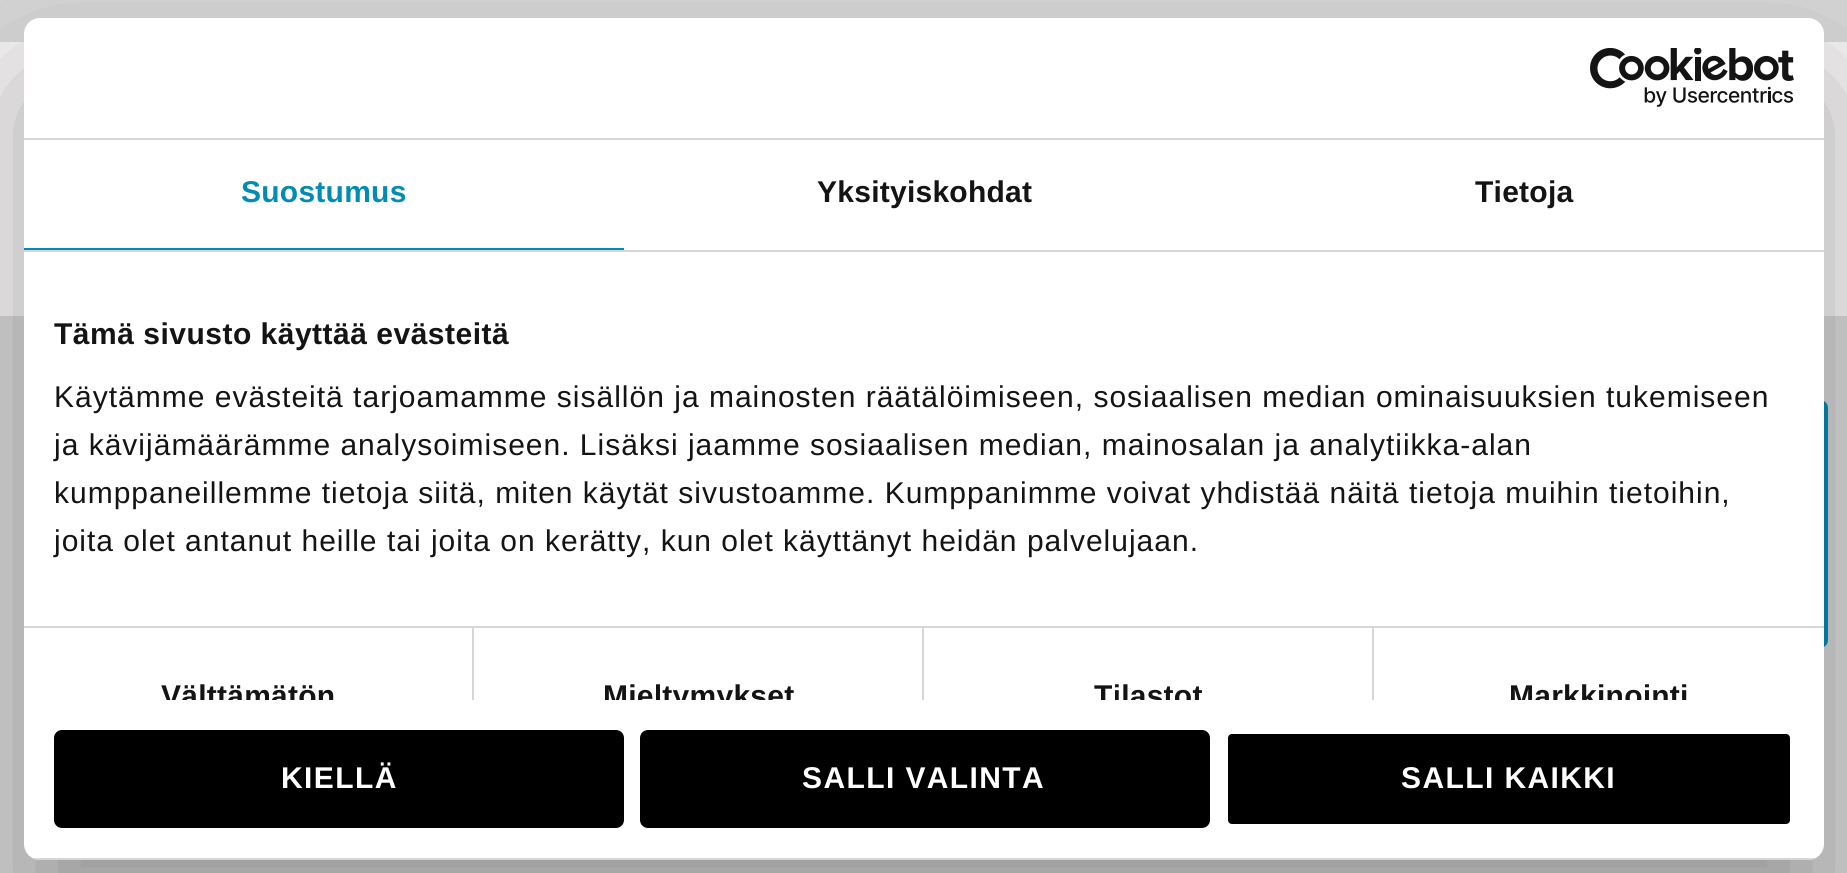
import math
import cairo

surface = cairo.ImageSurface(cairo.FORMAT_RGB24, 1847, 873)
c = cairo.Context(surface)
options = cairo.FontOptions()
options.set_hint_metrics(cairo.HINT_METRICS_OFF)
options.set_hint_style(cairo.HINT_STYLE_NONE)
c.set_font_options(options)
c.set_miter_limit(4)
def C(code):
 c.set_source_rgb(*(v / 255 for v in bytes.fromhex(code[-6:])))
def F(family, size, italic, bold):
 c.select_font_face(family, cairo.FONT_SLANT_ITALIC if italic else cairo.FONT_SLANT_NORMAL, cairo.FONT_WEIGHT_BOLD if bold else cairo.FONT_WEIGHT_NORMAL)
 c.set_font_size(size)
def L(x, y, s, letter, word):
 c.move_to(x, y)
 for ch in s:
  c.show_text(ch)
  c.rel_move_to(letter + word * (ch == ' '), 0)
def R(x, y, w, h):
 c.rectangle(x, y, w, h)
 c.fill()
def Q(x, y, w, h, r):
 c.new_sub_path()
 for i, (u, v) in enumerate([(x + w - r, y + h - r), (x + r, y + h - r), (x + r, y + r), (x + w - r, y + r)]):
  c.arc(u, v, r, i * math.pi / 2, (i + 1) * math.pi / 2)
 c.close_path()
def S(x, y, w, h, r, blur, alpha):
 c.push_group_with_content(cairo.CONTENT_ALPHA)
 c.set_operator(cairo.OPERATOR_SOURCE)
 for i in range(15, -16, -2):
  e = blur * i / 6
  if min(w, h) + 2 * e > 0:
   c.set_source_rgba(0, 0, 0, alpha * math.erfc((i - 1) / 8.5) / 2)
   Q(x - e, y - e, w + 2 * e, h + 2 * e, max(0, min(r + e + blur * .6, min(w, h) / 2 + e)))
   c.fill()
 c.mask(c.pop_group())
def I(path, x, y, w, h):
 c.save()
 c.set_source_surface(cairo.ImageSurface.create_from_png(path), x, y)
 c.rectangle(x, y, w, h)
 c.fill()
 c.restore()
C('d7d7d7')
c.paint()
C('f5f3f4')
R(0,42,1847,274)
C('018cb5')
Q(1716,400,112,248,8)
c.fill()
C('000000')
S(24,82,1800,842,16,68,.3)
C('ffffff')
Q(24,18,1800,842,16)
c.fill()
C('d6d6d6')
R(24,138,1800,2)
I('1.png',1590,48,204,59)
R(24,250,1800,2)
C('018cb5')
R(24,248,600,2)
F('Liberation Sans',30,0,1)
L(241,202,'Suostumus',.25,0)
C('141414')
L(817,202,'Yksityiskohdat',.25,0)
L(1475,202,'Tietoja',.25,0)
C('d6d6d6')
R(24,626,1800,2)
C('141414')
L(54,344,'Tämä sivusto käyttää evästeitä',.5,0)
F('Liberation Sans',30,0,0)
L(54,407,'Käytämme evästeitä tarjoamamme sisällön ja mainosten räätälöimiseen, sosiaalisen median ominaisuuksien tukemiseen',1,0)
L(54,455,'ja kävijämäärämme analysoimiseen. Lisäksi jaamme sosiaalisen median, mainosalan ja analytiikka-alan',1,0)
L(54,503,'kumppaneillemme tietoja siitä, miten käytät sivustoamme. Kumppanimme voivat yhdistää näitä tietoja muihin tietoihin,',1,0)
L(54,551,'joita olet antanut heille tai joita on kerätty, kun olet käyttänyt heidän palvelujaan.',1,0)
C('d6d6d6')
R(472,628,2,72)
c.save()
c.rectangle(24,252,1800,448)
c.clip()
F('Liberation Sans',30,0,1)
C('141414')
L(161,706,'Välttämätön',.25,0)
c.restore()
R(922,628,2,72)
c.save()
c.rectangle(24,252,1800,448)
c.clip()
F('Liberation Sans',30,0,1)
C('141414')
L(603,706,'Mieltymykset',.25,0)
c.restore()
R(1372,628,2,72)
c.save()
c.rectangle(24,252,1800,448)
c.clip()
F('Liberation Sans',30,0,1)
C('141414')
L(1094,706,'Tilastot',.25,0)
L(1509,706,'Markkinointi',.25,0)
c.restore()
c.save()
Q(24,18,1800,842,16)
c.clip()
R(24,858,1800,2)
c.restore()
C('000000')
Q(56,732,566,94,6)
c.fill_preserve()
c.set_line_width(4)
c.stroke()
F('Liberation Sans',30,0,1)
C('ffffff')
L(281,788,'KIELLÄ',1.4,0)
C('000000')
Q(642,732,566,94,6)
c.fill_preserve()
c.stroke()
C('ffffff')
L(802,788,'SALLI VALINTA',1.4,0)
C('000000')
Q(1226,732,566,94,6)
c.fill_preserve()
C('ffffff')
c.stroke()
L(1401,788,'SALLI KAIKKI',1.4,0)
surface.write_to_png('o.png')
